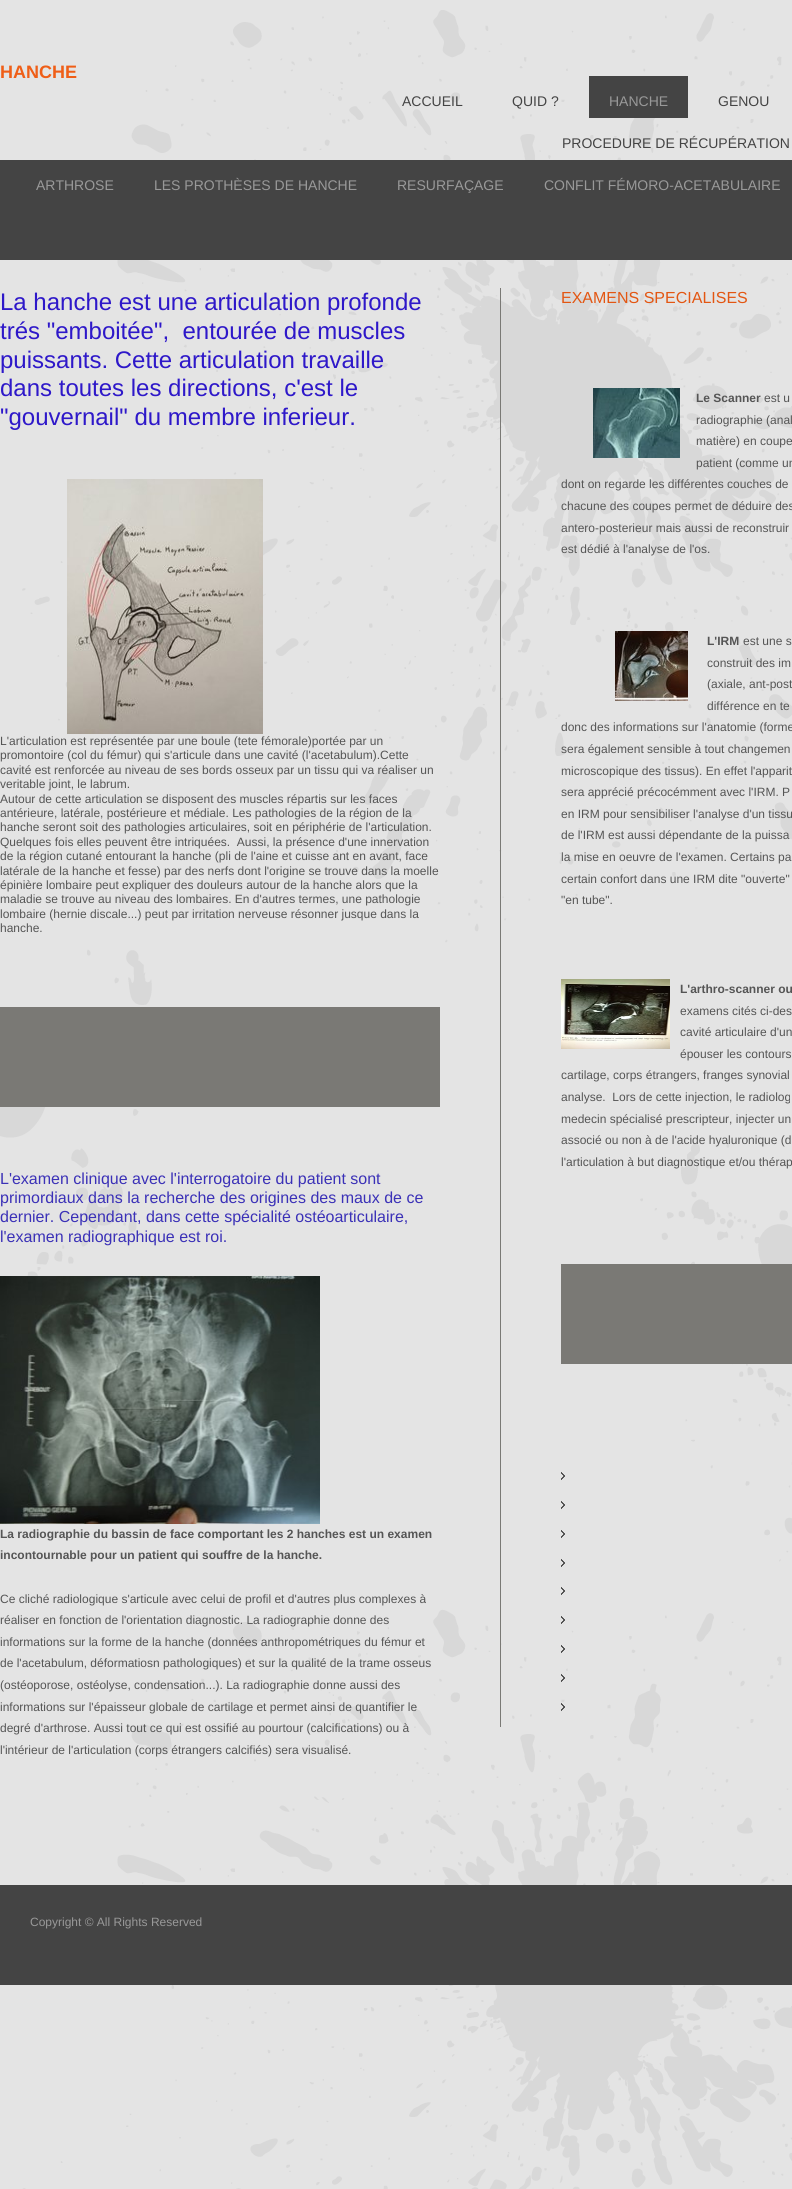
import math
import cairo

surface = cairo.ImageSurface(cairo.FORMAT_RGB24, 792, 2189)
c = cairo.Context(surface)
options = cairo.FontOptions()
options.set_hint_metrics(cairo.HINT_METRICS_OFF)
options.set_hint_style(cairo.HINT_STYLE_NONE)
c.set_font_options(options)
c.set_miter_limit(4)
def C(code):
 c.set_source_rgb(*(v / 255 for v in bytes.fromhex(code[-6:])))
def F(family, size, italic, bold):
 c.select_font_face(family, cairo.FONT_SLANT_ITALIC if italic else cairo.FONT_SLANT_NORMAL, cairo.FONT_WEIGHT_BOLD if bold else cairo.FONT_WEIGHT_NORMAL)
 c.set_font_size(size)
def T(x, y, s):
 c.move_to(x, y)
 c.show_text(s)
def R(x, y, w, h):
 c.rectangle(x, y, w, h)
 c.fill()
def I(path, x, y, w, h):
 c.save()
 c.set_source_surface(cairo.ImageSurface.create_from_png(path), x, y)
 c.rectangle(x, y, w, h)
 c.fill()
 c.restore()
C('e4e4e4')
c.paint()
I('1.png',0,10,792,2179)
F('Liberation Sans',18,0,1)
C('ef5e17')
T(0,78,'HANCHE')
F('Liberation Sans',14,0,0)
C('444444')
T(402,106,'ACCUEIL')
T(512,106,'QUID ?')
R(589,76,99,42)
C('999999')
T(609,106,'HANCHE')
C('444444')
T(718,106,'GENOU')
T(562,148,'PROCEDURE DE RÉCUPÉRATION')
R(0,160,792,100)
C('999999')
T(36,190,'ARTHROSE')
T(154,190,'LES PROTHÈSES DE HANCHE')
T(397,190,'RESURFAÇAGE')
T(544,190,'CONFLIT FÉMORO-ACETABULAIRE')
F('Liberation Sans',24,0,0)
C('2e18c9')
T(0,310,'La hanche est une articulation profonde')
T(0,339,'trés "emboitée",  entourée de muscles')
T(0,368,'puissants. Cette articulation travaille')
T(0,396,'dans toutes les directions, c\'est le')
T(0,425,'"gouvernail" du membre inferieur.')
I('2.png',67,479,196,255)
F('Liberation Sans',12,0,0)
C('555555')
T(0,745,'L\'articulation est représentée par une boule (tete fémorale)portée par un')
T(0,759,'promontoire (col du fémur) qui s\'articule dans une cavité (l\'acetabulum).Cette')
T(0,774,'cavité est renforcée au niveau de ses bords osseux par un tissu qui va réaliser un')
T(0,788,'veritable joint, le labrum.')
T(0,803,'Autour de cette articulation se disposent des muscles répartis sur les faces')
T(0,817,'antérieure, latérale, postérieure et médiale. Les pathologies de la région de la')
T(0,831,'hanche seront soit des pathologies articulaires, soit en périphérie de l\'articulation.')
T(0,846,'Quelques fois elles peuvent être intriquées.  Aussi, la présence d\'une innervation')
T(0,860,'de la région cutané entourant la hanche (pli de l\'aine et cuisse ant en avant, face')
T(0,875,'latérale de la hanche et fesse) par des nerfs dont l\'origine se trouve dans la moelle')
T(0,889,'épinière lombaire peut expliquer des douleurs autour de la hanche alors que la')
T(0,903,'maladie se trouve au niveau des lombaires. En d\'autres termes, une pathologie')
T(0,918,'lombaire (hernie discale...) peut par irritation nerveuse résonner jusque dans la')
T(0,932,'hanche.')
C('7a7975')
R(0,1007,440,100)
F('Liberation Sans',16,0,0)
C('3b31b7')
T(0,1184,'L\'examen clinique avec l\'interrogatoire du patient sont')
T(0,1203,'primordiaux dans la recherche des origines des maux de ce')
T(0,1222,'dernier. Cependant, dans cette spécialité ostéoarticulaire,')
T(0,1242,'l\'examen radiographique est roi.')
I('3.png',0,1276,320,248)
F('Liberation Sans',12,0,1)
C('555555')
T(0,1538,'La radiographie du bassin de face comportant les 2 hanches est un examen')
T(0,1559,'incontournable pour un patient qui souffre de la hanche.')
F('Liberation Sans',12,0,0)
T(0,1603,'Ce cliché radiologique s\'articule avec celui de profil et d\'autres plus complexes à')
T(0,1624,'réaliser en fonction de l\'orientation diagnostic. La radiographie donne des')
T(0,1646,'informations sur la forme de la hanche (données anthropométriques du fémur et')
T(0,1667,'de l\'acetabulum, déformatiosn pathologiques) et sur la qualité de la trame osseus')
T(0,1689,'(ostéoporose, ostéolyse, condensation...). La radiographie donne aussi des')
T(0,1711,'informations sur l\'épaisseur globale de cartilage et permet ainsi de quantifier le')
T(0,1732,'degré d\'arthrose. Aussi tout ce qui est ossifié au pourtour (calcifications) ou à')
T(0,1754,'l\'intérieur de l\'articulation (corps étrangers calcifiés) sera visualisé.')
C('7a7975')
R(500,288,1,1439)
F('Liberation Sans',16,0,0)
C('e35612')
T(561,303,'EXAMENS SPECIALISES')
I('4.png',593,388,87,70)
F('Liberation Sans',12,0,1)
C('555555')
T(696,402,'Le Scanner')
F('Liberation Sans',12,0,0)
T(764,402,'est u')
T(696,424,'radiographie (anal')
T(696,445,'matière) en coupe')
T(696,467,'patient (comme un')
T(561,488,'dont on regarde les différentes couches de')
T(561,510,'chacune des coupes permet de déduire des')
T(561,532,'antero-posterieur mais aussi de reconstruir')
T(561,553,'est dédié à l\'analyse de l\'os.')
I('5.png',615,631,73,70)
F('Liberation Sans',12,0,1)
T(707,645,'L\'IRM')
F('Liberation Sans',12,0,0)
T(743,645,'est une s')
T(707,667,'construit des im')
T(707,688,'(axiale, ant-post')
T(707,710,'différence en te')
T(561,731,'donc des informations sur l\'anatomie (forme')
T(561,753,'sera également sensible à tout changemen')
T(561,775,'microscopique des tissus). En effet l\'apparit')
T(561,796,'sera apprécié précocémment avec l\'IRM. P')
T(561,818,'en IRM pour sensibiliser l\'analyse d\'un tissu')
T(561,839,'de l\'IRM est aussi dépendante de la puissa')
T(561,861,'la mise en oeuvre de l\'examen. Certains pa')
T(561,883,'certain confort dans une IRM dite "ouverte"')
T(561,904,'"en tube".')
I('6.png',561,979,109,70)
F('Liberation Sans',12,0,1)
T(680,993,'L\'arthro-scanner ou')
F('Liberation Sans',12,0,0)
T(680,1015,'examens cités ci-des')
T(680,1036,'cavité articulaire d\'un')
T(680,1058,'épouser les contours')
T(561,1079,'cartilage, corps étrangers, franges synovial')
T(561,1101,'analyse.  Lors de cette injection, le radiolog')
T(561,1123,'medecin spécialisé prescripteur, injecter un')
T(561,1144,'associé ou non à de l\'acide hyaluronique (d')
T(561,1166,'l\'articulation à but diagnostique et/ou thérap')
C('7a7975')
R(561,1264,231,100)
I('7.png',561,1472,4,8)
I('7.png',561,1501,4,8)
I('7.png',561,1530,4,8)
I('7.png',561,1559,4,8)
I('7.png',561,1587,4,8)
I('7.png',561,1616,4,8)
I('7.png',561,1645,4,8)
I('7.png',561,1674,4,8)
I('7.png',561,1703,4,8)
C('444444')
R(0,1885,792,100)
C('999999')
T(30,1926,'Copyright © All Rights Reserved')
surface.write_to_png('o.png')
